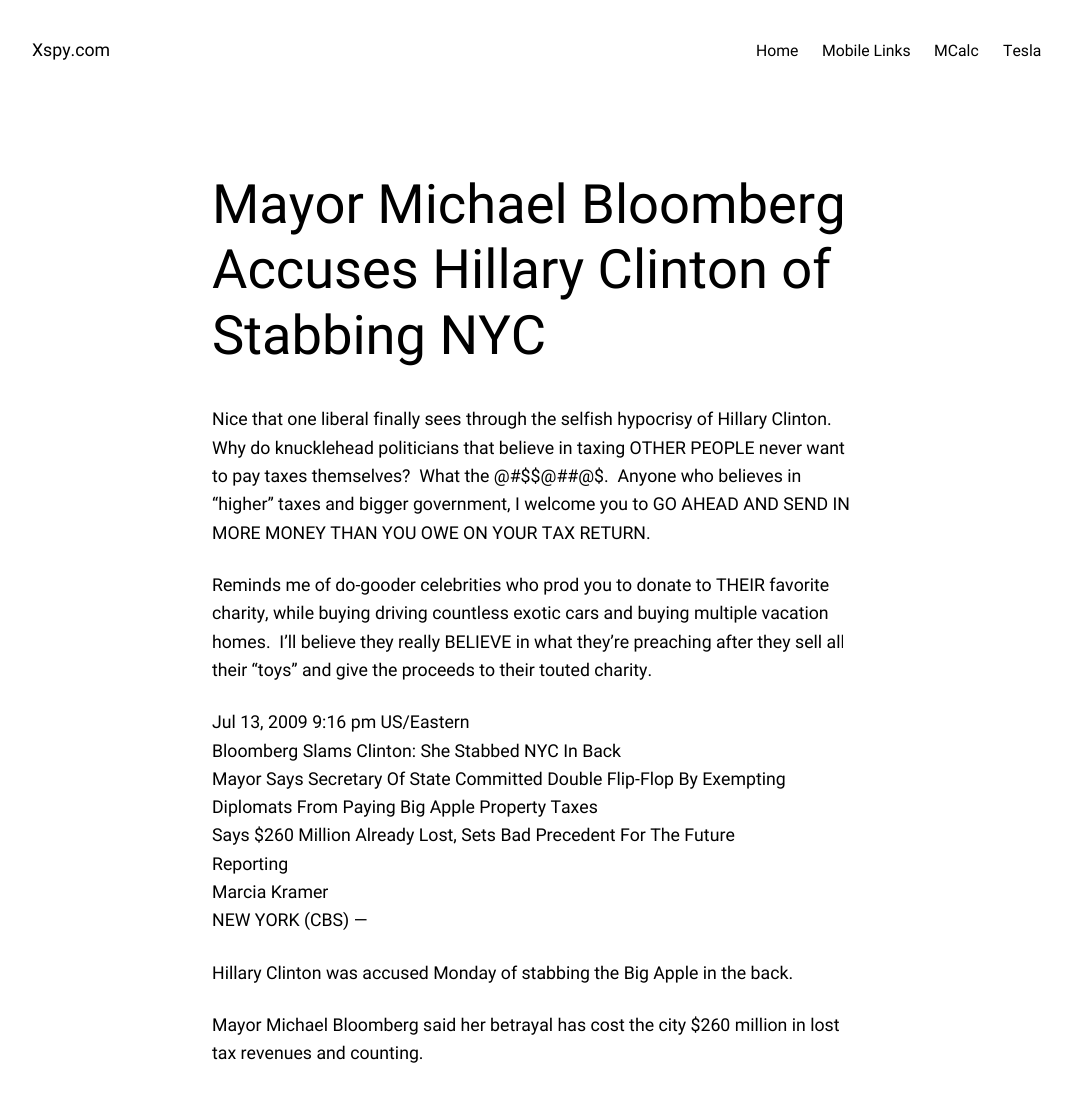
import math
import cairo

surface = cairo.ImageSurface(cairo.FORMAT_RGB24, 1073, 1101)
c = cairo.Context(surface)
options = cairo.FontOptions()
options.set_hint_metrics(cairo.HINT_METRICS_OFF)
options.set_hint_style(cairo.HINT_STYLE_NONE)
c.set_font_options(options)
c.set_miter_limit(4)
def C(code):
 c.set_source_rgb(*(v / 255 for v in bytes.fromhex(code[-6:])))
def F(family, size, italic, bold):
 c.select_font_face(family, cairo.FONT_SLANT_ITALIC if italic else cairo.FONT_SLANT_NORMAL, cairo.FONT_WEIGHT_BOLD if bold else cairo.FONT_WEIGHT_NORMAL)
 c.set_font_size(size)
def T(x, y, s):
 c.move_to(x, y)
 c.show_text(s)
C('ffffff')
c.paint()
F('Roboto',17.7,0,0)
C('000000')
T(32,56,'Xspy.com')
F('Roboto',15.75,0,0)
T(756,56,'Home')
T(822,56,'Mobile Links')
T(934,56,'MCalc')
T(1003,56,'Tesla')
F('Roboto',54.25,0,0)
T(212,223,'Mayor Michael Bloomberg')
T(212,288,'Accuses Hillary Clinton of')
T(212,354,'Stabbing NYC')
F('Roboto',17.7,0,0)
T(212,425,'Nice that one liberal finally sees through the selfish hypocrisy of Hillary Clinton.')
T(212,454,'Why do knucklehead politicians that believe in taxing OTHER PEOPLE never want')
T(212,482,'to pay taxes themselves?  What the @#$$@##@$.  Anyone who believes in')
T(212,510,'“higher” taxes and bigger government, I welcome you to GO AHEAD AND SEND IN')
T(212,539,'MORE MONEY THAN YOU OWE ON YOUR TAX RETURN.')
T(212,591,'Reminds me of do-gooder celebrities who prod you to donate to THEIR favorite')
T(212,619,'charity, while buying driving countless exotic cars and buying multiple vacation')
T(212,648,'homes.  I’ll believe they really BELIEVE in what they’re preaching after they sell all')
T(212,676,'their “toys” and give the proceeds to their touted charity.')
T(212,728,'Jul 13, 2009 9:16 pm US/Eastern')
T(212,757,'Bloomberg Slams Clinton: She Stabbed NYC In Back')
T(212,785,'Mayor Says Secretary Of State Committed Double Flip-Flop By Exempting')
T(212,813,'Diplomats From Paying Big Apple Property Taxes')
T(212,841,'Says $260 Million Already Lost, Sets Bad Precedent For The Future')
T(212,870,'Reporting')
T(212,898,'Marcia Kramer')
T(212,926,'NEW YORK (CBS) ―')
T(212,979,'Hillary Clinton was accused Monday of stabbing the Big Apple in the back.')
T(212,1031,'Mayor Michael Bloomberg said her betrayal has cost the city $260 million in lost')
T(212,1059,'tax revenues and counting.')
surface.write_to_png('o.png')
